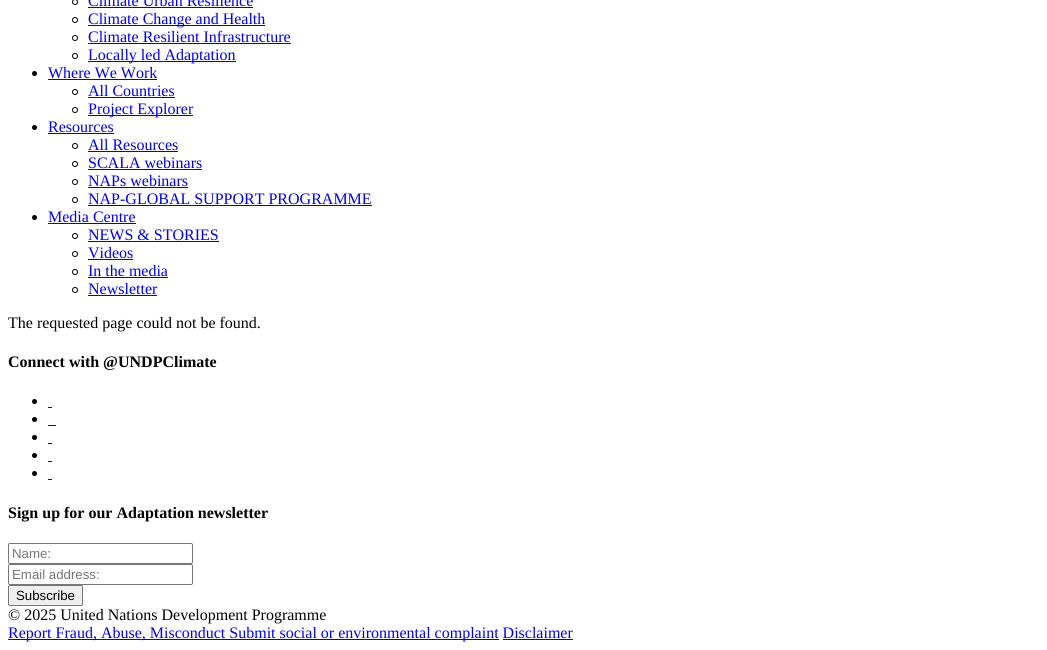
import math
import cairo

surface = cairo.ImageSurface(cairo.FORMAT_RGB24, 1047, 650)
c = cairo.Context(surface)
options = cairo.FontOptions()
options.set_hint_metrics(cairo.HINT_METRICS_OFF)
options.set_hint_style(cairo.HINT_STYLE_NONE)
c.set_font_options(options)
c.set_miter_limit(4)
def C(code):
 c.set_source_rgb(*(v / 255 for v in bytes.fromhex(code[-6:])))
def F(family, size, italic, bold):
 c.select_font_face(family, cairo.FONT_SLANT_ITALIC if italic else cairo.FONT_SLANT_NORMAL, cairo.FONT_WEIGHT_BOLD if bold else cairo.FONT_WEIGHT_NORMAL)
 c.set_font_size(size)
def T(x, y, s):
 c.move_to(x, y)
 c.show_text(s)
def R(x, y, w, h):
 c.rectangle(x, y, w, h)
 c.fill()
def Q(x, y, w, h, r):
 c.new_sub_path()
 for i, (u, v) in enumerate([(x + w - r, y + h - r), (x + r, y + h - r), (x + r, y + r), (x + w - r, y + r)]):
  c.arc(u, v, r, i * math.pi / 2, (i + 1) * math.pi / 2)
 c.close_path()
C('ffffff')
c.paint()
c.arc(75,2,2.5,0,2 * math.pi)
C('000000')
c.set_line_width(1)
c.stroke()
F('Liberation Serif',16,0,0)
C('0000ee')
T(88,6,'Climate Urban Resilience')
R(88,7,165,1)
c.new_path()
c.arc(75,20,2.5,0,2 * math.pi)
C('000000')
c.stroke()
C('0000ee')
R(88,25,177,1)
T(88,24,'Climate Change and Health')
c.new_path()
c.arc(75,38,2.5,0,2 * math.pi)
C('000000')
c.stroke()
C('0000ee')
T(88,42,'Climate Resilient Infrastructure')
R(88,43,203,1)
c.new_path()
c.arc(75,56,2.5,0,2 * math.pi)
C('000000')
c.stroke()
C('0000ee')
R(88,61,148,1)
T(88,60,'Locally led Adaptation')
C('000000')
c.new_path()
c.arc(34.5,73.5,2.5,0,2 * math.pi)
c.fill()
C('0000ee')
T(48,78,'Where We Work')
R(48,79,109,1)
c.new_path()
c.arc(75,92,2.5,0,2 * math.pi)
C('000000')
c.stroke()
C('0000ee')
T(88,96,'All Countries')
R(88,97,87,1)
c.new_path()
c.arc(75,110,2.5,0,2 * math.pi)
C('000000')
c.stroke()
C('0000ee')
R(88,115,105,1)
T(88,114,'Project Explorer')
C('000000')
c.new_path()
c.arc(34.5,127.5,2.5,0,2 * math.pi)
c.fill()
C('0000ee')
T(48,132,'Resources')
R(48,133,66,1)
c.new_path()
c.arc(75,146,2.5,0,2 * math.pi)
C('000000')
c.stroke()
C('0000ee')
T(88,150,'All Resources')
R(88,151,90,1)
c.new_path()
c.arc(75,164,2.5,0,2 * math.pi)
C('000000')
c.stroke()
C('0000ee')
T(88,168,'SCALA webinars')
R(88,169,114,1)
c.new_path()
c.arc(75,182,2.5,0,2 * math.pi)
C('000000')
c.stroke()
C('0000ee')
T(88,186,'NAPs webinars')
R(88,187,100,1)
c.new_path()
c.arc(75,200,2.5,0,2 * math.pi)
C('000000')
c.stroke()
C('0000ee')
T(88,204,'NAP-GLOBAL SUPPORT PROGRAMME')
R(88,205,284,1)
C('000000')
c.new_path()
c.arc(34.5,217.5,2.5,0,2 * math.pi)
c.fill()
C('0000ee')
T(48,222,'Media Centre')
R(48,223,88,1)
c.new_path()
c.arc(75,236,2.5,0,2 * math.pi)
C('000000')
c.stroke()
C('0000ee')
T(88,240,'NEWS & STORIES')
R(88,241,131,1)
c.new_path()
c.arc(75,254,2.5,0,2 * math.pi)
C('000000')
c.stroke()
C('0000ee')
T(88,258,'Videos')
R(88,259,45,1)
c.new_path()
c.arc(75,272,2.5,0,2 * math.pi)
C('000000')
c.stroke()
C('0000ee')
T(88,276,'In the media')
R(88,277,80,1)
c.new_path()
c.arc(75,290,2.5,0,2 * math.pi)
C('000000')
c.stroke()
C('0000ee')
T(88,294,'Newsletter')
R(88,295,69,1)
C('000000')
T(8,328,'The requested page could not be found.')
F('Liberation Serif',16,0,1)
T(8,367,'Connect with @UNDPClimate')
c.new_path()
c.arc(34.5,401.5,2.5,0,2 * math.pi)
c.fill()
C('0000ee')
R(48,407,4,1)
C('000000')
c.arc(34.5,419.5,2.5,0,2 * math.pi)
c.fill()
C('0000ee')
R(48,425,8,1)
C('000000')
c.arc(34.5,437.5,2.5,0,2 * math.pi)
c.fill()
C('0000ee')
R(48,443,4,1)
C('000000')
c.arc(34.5,455.5,2.5,0,2 * math.pi)
c.fill()
C('0000ee')
R(48,461,4,1)
C('000000')
c.arc(34.5,473.5,2.5,0,2 * math.pi)
c.fill()
C('0000ee')
R(48,479,4,1)
C('000000')
T(8,518,'Sign up for our Adaptation newsletter')
Q(8.5,543.5,184,20,1.5)
C('767676')
c.stroke()
F('Liberation Sans',13.25,0,0)
C('757575')
T(12,558,'Name:')
Q(8.5,564.5,184,20,1.5)
C('767676')
c.stroke()
C('757575')
T(12,579,'Email address:')
C('efefef')
Q(8.5,585.5,74,20,1.5)
c.fill_preserve()
C('767676')
c.stroke()
C('000000')
T(16,600,'Subscribe')
F('Liberation Serif',16,0,0)
T(8,620,'© 2025 United Nations Development Programme')
C('0000ee')
R(8,639,491,1)
T(8,638,'Report Fraud, Abuse, Misconduct Submit social or environmental complaint Disclaimer')
R(503,639,70,1)
surface.write_to_png('o.png')
